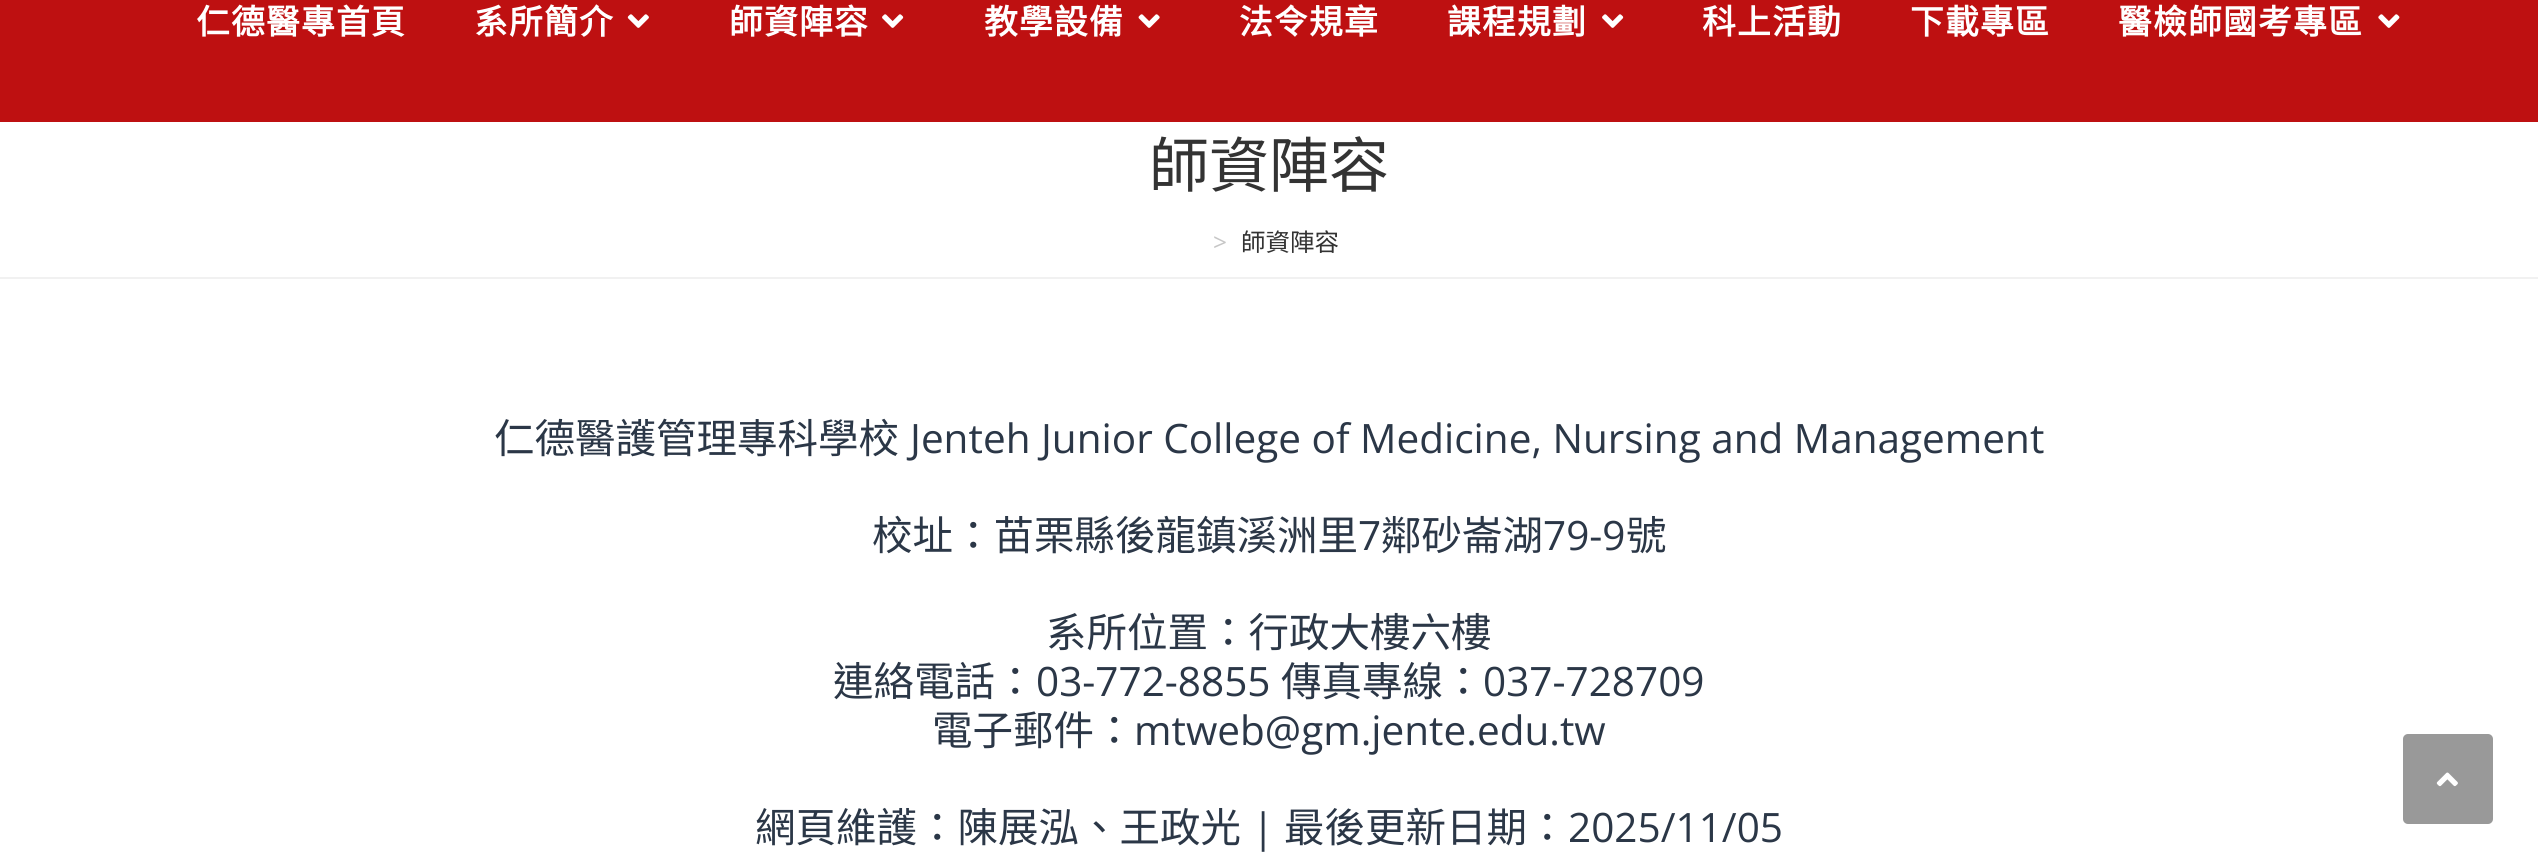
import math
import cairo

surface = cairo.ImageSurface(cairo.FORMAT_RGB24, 2538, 867)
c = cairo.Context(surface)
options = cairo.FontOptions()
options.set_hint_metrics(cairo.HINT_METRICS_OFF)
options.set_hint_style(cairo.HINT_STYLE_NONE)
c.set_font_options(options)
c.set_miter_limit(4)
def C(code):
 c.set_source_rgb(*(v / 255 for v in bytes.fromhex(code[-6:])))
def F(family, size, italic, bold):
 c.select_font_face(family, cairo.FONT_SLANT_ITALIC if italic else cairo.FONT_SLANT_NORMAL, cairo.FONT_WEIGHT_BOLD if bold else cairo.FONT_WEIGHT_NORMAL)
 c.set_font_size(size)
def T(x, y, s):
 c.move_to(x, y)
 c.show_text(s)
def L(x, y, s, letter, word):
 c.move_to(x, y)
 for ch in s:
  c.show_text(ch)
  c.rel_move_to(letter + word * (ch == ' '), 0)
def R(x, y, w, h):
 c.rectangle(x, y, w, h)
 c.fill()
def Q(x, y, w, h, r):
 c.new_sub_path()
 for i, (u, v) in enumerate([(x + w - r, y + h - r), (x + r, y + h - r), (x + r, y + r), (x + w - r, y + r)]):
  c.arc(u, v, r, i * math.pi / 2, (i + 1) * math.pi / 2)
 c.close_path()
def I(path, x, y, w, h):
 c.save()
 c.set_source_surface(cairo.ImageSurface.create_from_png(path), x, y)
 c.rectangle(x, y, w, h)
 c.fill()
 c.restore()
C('ffffff')
c.paint()
C('be1011')
R(0,0,2538,122)
F('Noto Sans CJK TC',33.75,0,1)
C('ffffff')
L(196,34,'仁德醫專首頁',1.25,0)
L(474,34,'系所簡介',1.25,0)
I('1.png',627,14,22,14)
L(729,34,'師資陣容',1.25,0)
I('2.png',882,14,22,14)
L(984,34,'教學設備',1.25,0)
I('3.png',1138,14,22,14)
L(1239,34,'法令規章',1.25,0)
L(1447,34,'課程規劃',1.25,0)
I('2.png',1602,14,22,14)
L(1702,34,'科上活動',1.25,0)
L(1910,34,'下載專區',1.25,0)
L(2118,34,'醫檢師國考專區',1.25,0)
I('4.png',2378,14,22,14)
C('f1f1f1')
R(0,277,2538,2)
F('Noto Sans CJK TC',60,0,0)
C('333333')
T(1149,187,'師資陣容')
F('Open Sans',24.5,0,0)
C('c6c6c6')
T(1213,251,'>')
F('Noto Sans CJK TC',24.5,0,0)
C('333333')
T(1241,251,'師資陣容')
F('Noto Sans CJK TC',40.5,0,0)
C('2b3747')
T(494,453,'仁德醫護管理專科學校')
F('Open Sans',40.5,0,0)
T(910,453,'Jenteh Junior College of Medicine, Nursing and Management')
F('Noto Sans CJK TC',40.5,0,0)
T(872,550,'校址：苗栗縣後龍鎮溪洲里')
F('Open Sans',40.5,0,0)
T(1358,550,'7')
F('Noto Sans CJK TC',40.5,0,0)
T(1381,550,'鄰砂崙湖')
F('Open Sans',40.5,0,0)
T(1543,550,'79-9')
F('Noto Sans CJK TC',40.5,0,0)
T(1626,550,'號')
T(1046,647,'系所位置：行政大樓六樓')
T(833,696,'連絡電話：')
F('Open Sans',40.5,0,0)
T(1036,696,'03-772-8855')
F('Noto Sans CJK TC',40.5,0,0)
T(1281,696,'傳真專線：')
F('Open Sans',40.5,0,0)
T(1483,696,'037-728709')
F('Noto Sans CJK TC',40.5,0,0)
T(932,745,'電子郵件：')
F('Open Sans',40.5,0,0)
T(1134,745,'mtweb@gm.jente.edu.tw')
F('Noto Sans CJK TC',40.5,0,0)
T(755,842,'網頁維護：陳展泓、王政光')
F('Open Sans',40.5,0,0)
T(1252,842,'|')
F('Noto Sans CJK TC',40.5,0,0)
T(1284,842,'最後更新日期：')
F('Open Sans',40.5,0,0)
T(1568,842,'2025/11/05')
C('999999')
Q(2403,734,90,90,5)
c.fill()
I('5.png',2436,772,22,15)
surface.write_to_png('o.png')
